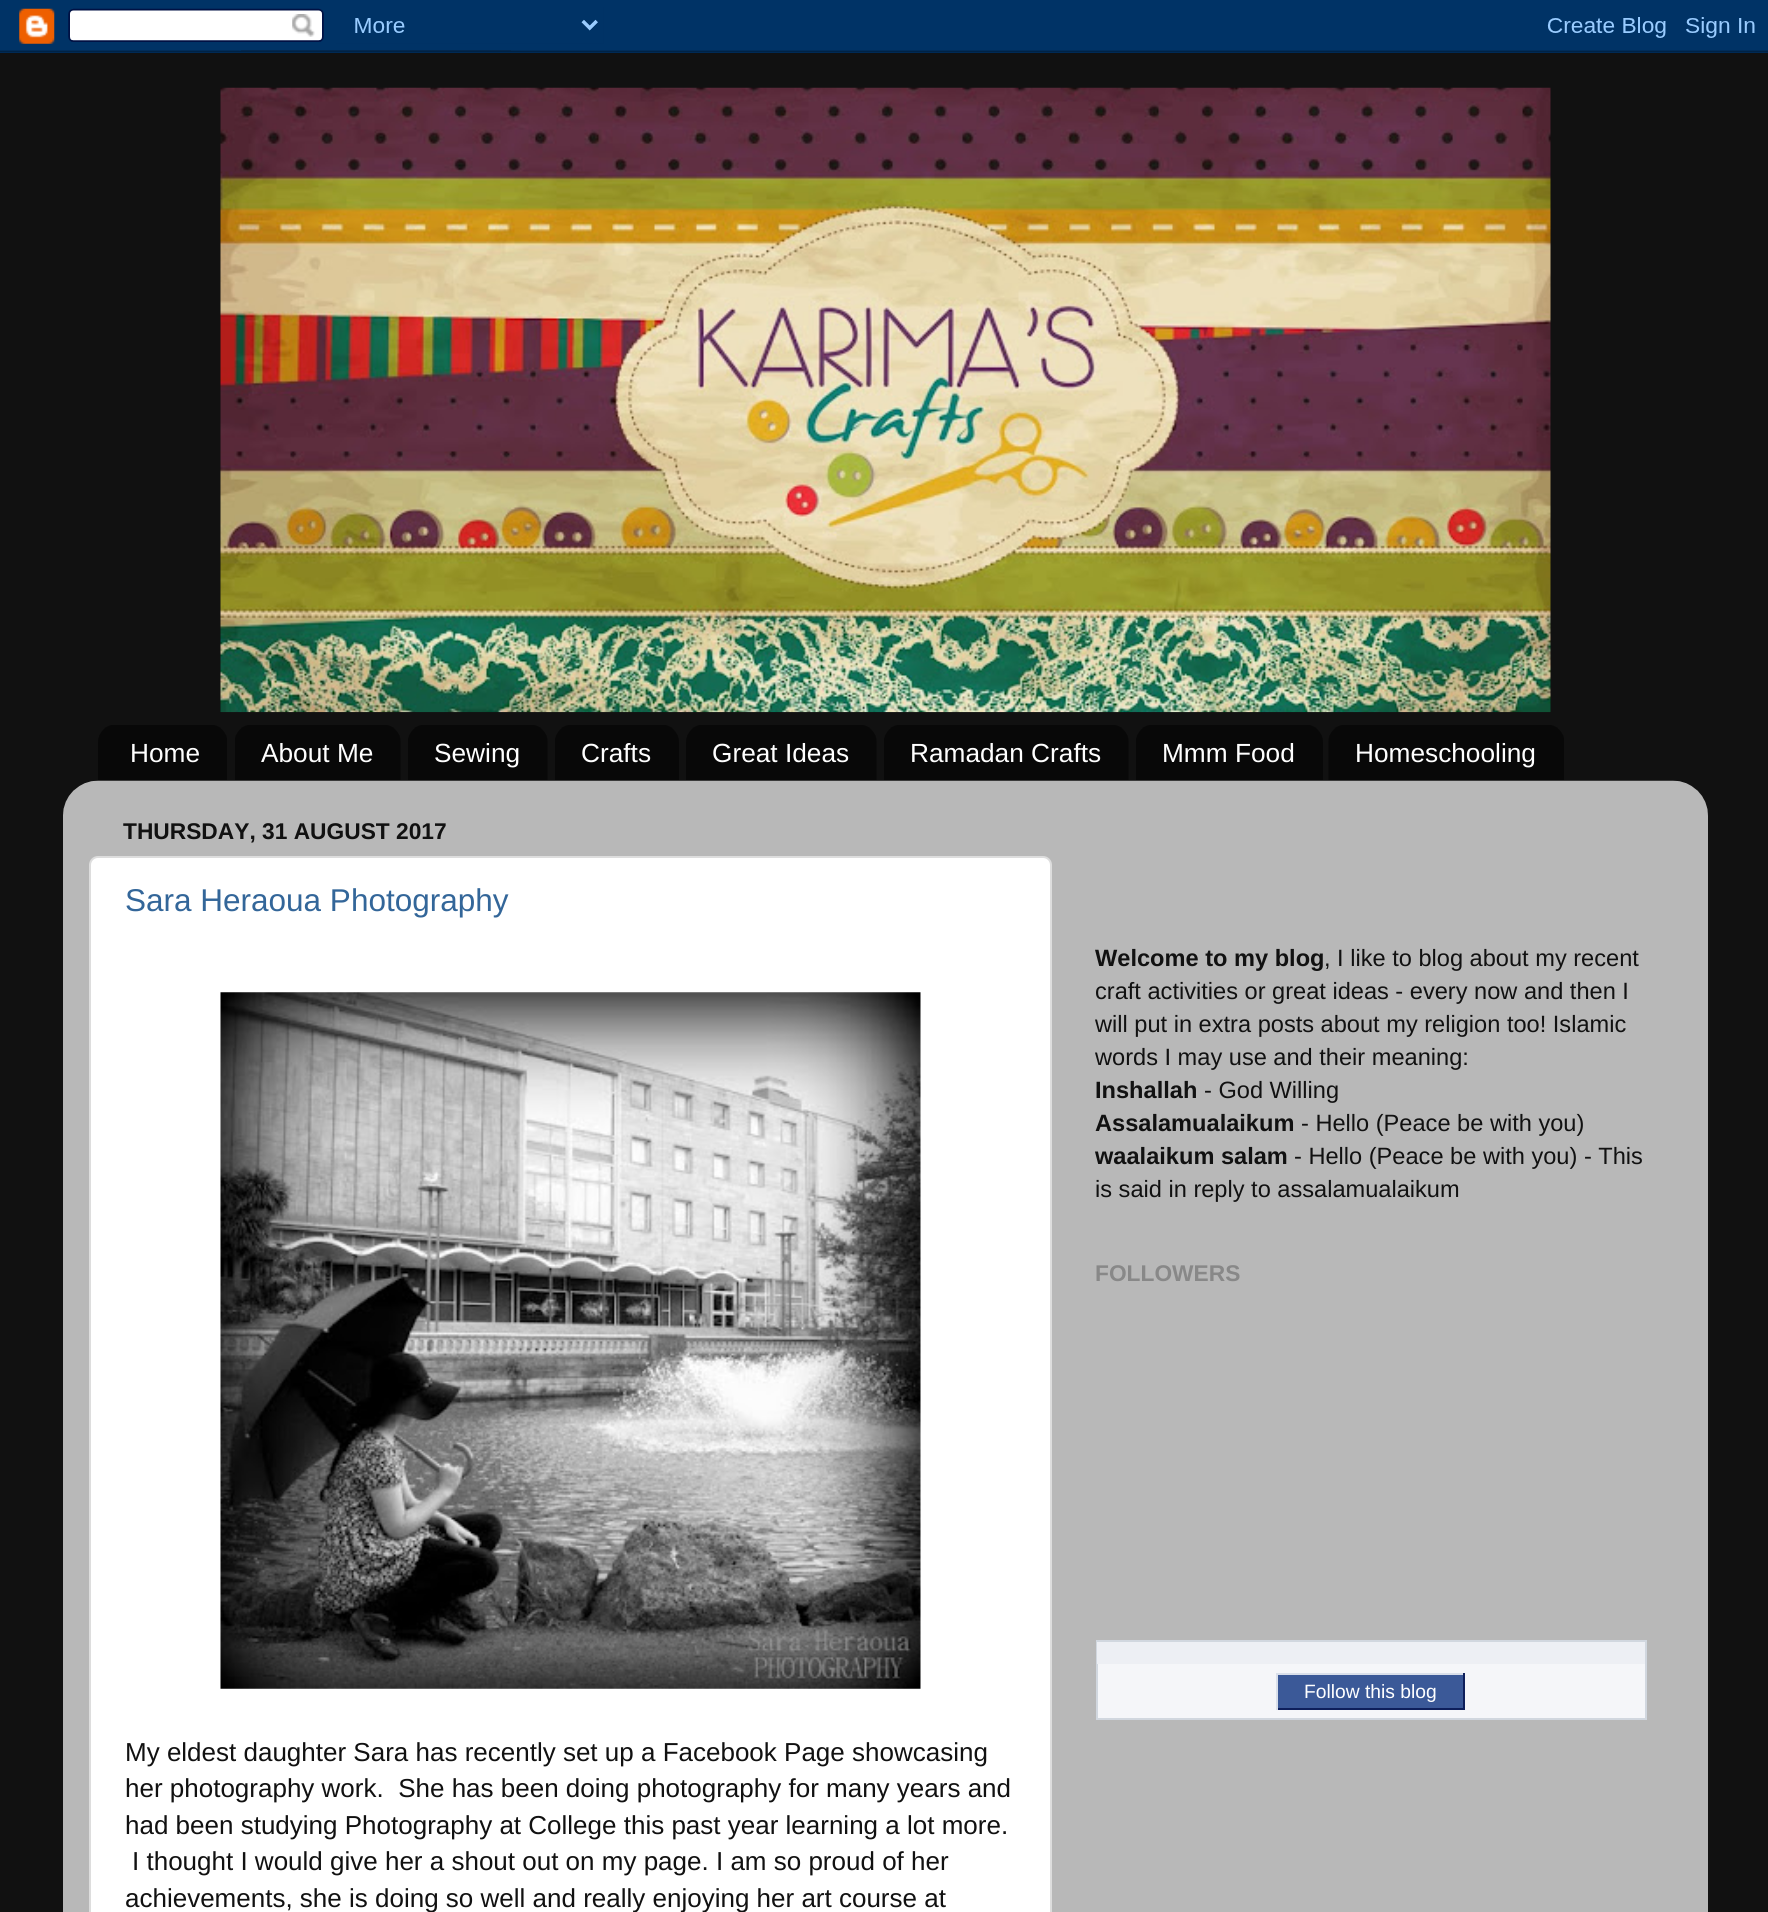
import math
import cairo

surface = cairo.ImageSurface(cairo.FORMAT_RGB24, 1768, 1912)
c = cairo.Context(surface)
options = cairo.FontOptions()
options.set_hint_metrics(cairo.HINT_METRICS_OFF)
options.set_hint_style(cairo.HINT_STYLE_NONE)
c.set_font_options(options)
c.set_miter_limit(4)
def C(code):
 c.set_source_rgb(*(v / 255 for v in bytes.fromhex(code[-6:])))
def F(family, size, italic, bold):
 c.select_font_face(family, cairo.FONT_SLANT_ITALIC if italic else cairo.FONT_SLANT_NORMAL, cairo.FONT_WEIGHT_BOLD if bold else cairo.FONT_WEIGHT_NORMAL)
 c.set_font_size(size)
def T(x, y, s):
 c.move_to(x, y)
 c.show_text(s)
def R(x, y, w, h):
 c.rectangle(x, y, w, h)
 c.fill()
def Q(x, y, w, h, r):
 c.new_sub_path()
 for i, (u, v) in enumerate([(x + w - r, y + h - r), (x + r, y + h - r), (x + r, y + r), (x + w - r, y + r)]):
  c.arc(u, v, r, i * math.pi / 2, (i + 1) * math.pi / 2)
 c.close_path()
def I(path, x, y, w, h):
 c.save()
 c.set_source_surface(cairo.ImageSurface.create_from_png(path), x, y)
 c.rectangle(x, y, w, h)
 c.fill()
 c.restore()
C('111111')
c.paint()
I('1.png',0,0,1768,53)
I('2.png',220,87,1331,626)
I('3.png',98,725,129,55)
F('Liberation Sans',26.25,0,0)
C('ffffff')
T(130,762,'Home')
I('4.png',235,725,166,55)
T(261,762,'About Me')
I('5.png',408,725,140,55)
T(434,762,'Sewing')
I('6.png',555,725,124,55)
T(581,762,'Crafts')
I('7.png',686,725,191,55)
T(712,762,'Great Ideas')
I('8.png',884,725,245,55)
T(910,762,'Ramadan Crafts')
I('9.png',1136,725,187,55)
T(1162,762,'Mmm Food')
I('10.png',1328,725,236,55)
T(1355,762,'Homeschooling')
I('11.png',63,780,1645,1132)
F('Liberation Sans',22.75,0,1)
C('111111')
T(123,839,'THURSDAY, 31 AUGUST 2017')
C('ffffff')
Q(90,857,961,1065,8)
c.fill_preserve()
C('dddddd')
c.stroke()
F('Liberation Sans',31.5,0,0)
C('336699')
T(125,911,'Sara Heraoua Photography')
I('12.png',220,992,701,697)
F('Liberation Sans',26,0,0)
C('111111')
T(125,1761,'My eldest daughter Sara has recently set up a Facebook Page showcasing')
T(125,1797,'her photography work.  She has been doing photography for many years and')
T(125,1834,'had been studying Photography at College this past year learning a lot more.')
T(132,1870,'I thought I would give her a shout out on my page. I am so proud of her')
T(125,1907,'achievements, she is doing so well and really enjoying her art course at')
F('Liberation Sans',23.6,0,1)
T(1095,966,'Welcome to my blog')
F('Liberation Sans',23.6,0,0)
T(1324,966,', I like to blog about my recent')
T(1095,999,'craft activities or great ideas - every now and then I')
T(1095,1032,'will put in extra posts about my religion too! Islamic')
T(1095,1065,'words I may use and their meaning:')
F('Liberation Sans',23.6,0,1)
T(1095,1098,'Inshallah')
F('Liberation Sans',23.6,0,0)
T(1204,1098,'- God Willing')
F('Liberation Sans',23.6,0,1)
T(1095,1131,'Assalamualaikum')
F('Liberation Sans',23.6,0,0)
T(1301,1131,'- Hello (Peace be with you)')
F('Liberation Sans',23.6,0,1)
T(1095,1164,'waalaikum salam')
F('Liberation Sans',23.6,0,0)
T(1294,1164,'- Hello (Peace be with you) - This')
T(1095,1197,'is said in reply to assalamualaikum')
F('Liberation Sans',22.75,0,1)
C('888888')
T(1095,1281,'FOLLOWERS')
C('f5f6f9')
R(1098,1664,547,54)
c.rectangle(1097,1641,549,78)
C('d1d7df')
c.stroke()
C('edeff4')
R(1097,1642,548,22)
C('3b5998')
R(1278,1675,185,33)
C('d9dfea')
R(1276,1673,189,2)
C('0e1f5b')
R(1463,1673,2,37)
R(1276,1708,189,2)
C('d9dfea')
R(1276,1673,2,37)
F('Liberation Sans',19.25,0,0)
C('ffffff')
T(1304,1698,'Follow this blog')
surface.write_to_png('o.png')
